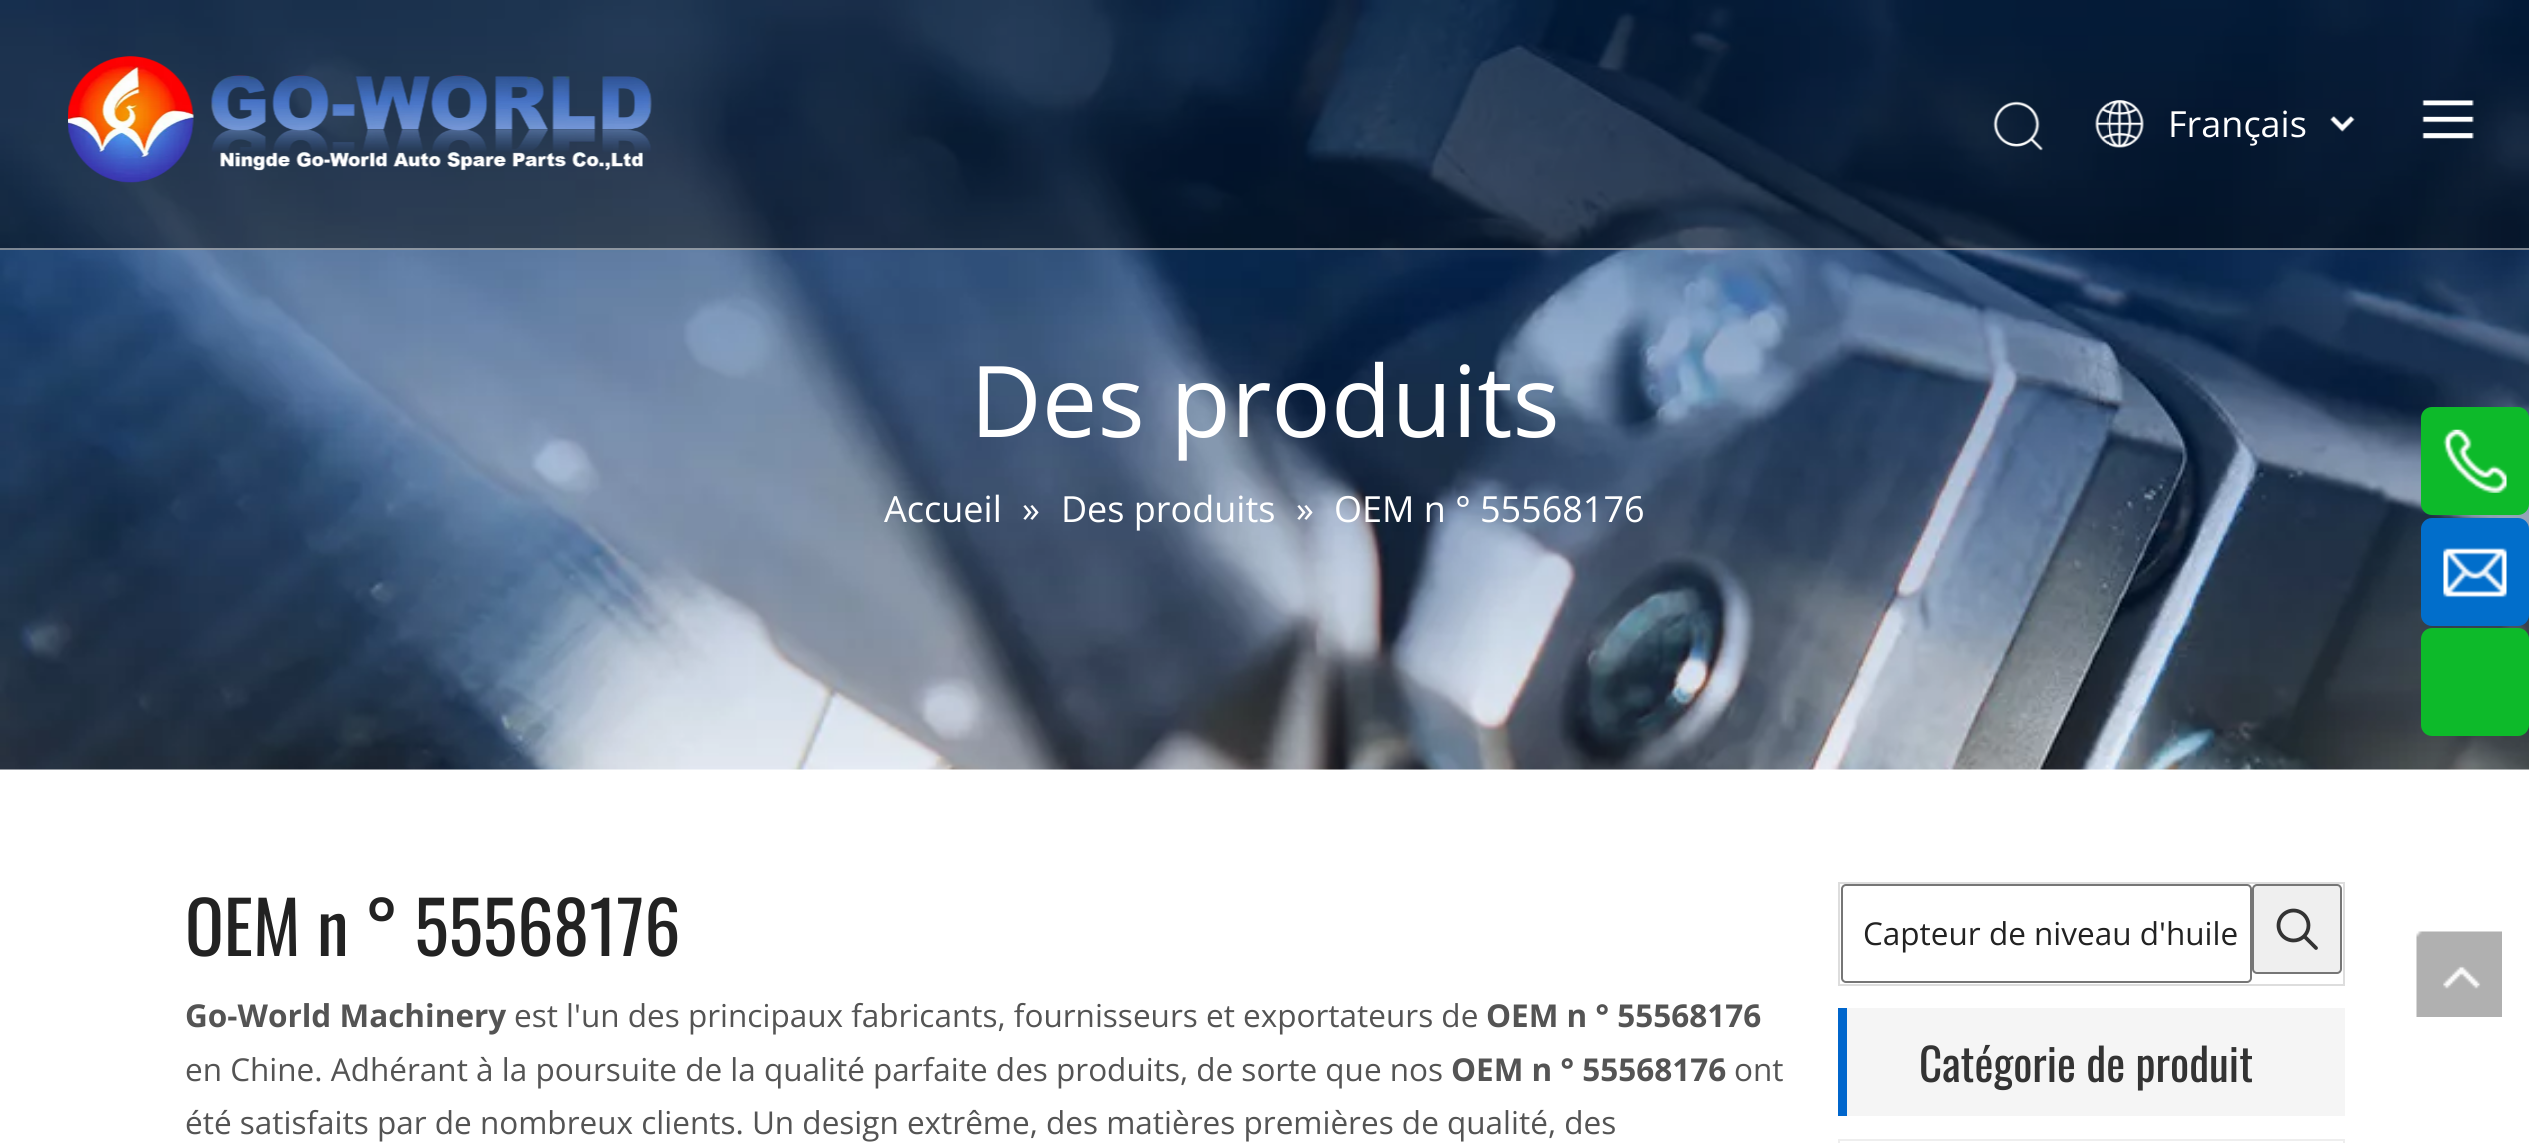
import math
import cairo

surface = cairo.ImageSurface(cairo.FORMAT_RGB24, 2529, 1143)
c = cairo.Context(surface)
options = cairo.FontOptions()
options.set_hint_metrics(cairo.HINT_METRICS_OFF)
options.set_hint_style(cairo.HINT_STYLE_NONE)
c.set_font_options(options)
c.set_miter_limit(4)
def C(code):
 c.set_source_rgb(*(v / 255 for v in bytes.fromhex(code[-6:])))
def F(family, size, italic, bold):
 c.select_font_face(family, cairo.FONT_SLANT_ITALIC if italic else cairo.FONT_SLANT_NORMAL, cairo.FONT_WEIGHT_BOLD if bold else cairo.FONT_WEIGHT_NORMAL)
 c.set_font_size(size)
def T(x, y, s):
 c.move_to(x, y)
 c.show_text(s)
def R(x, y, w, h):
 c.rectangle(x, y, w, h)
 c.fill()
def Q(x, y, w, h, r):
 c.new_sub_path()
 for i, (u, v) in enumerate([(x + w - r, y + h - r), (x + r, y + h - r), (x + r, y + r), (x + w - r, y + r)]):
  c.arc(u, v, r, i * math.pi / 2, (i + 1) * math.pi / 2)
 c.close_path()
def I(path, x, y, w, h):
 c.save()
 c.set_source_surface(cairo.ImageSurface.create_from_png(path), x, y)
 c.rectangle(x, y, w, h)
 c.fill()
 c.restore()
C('ffffff')
c.paint()
I('6.png',0,0,2529,770)
c.set_source_rgba(0,0,0,0.48)
R(0,0,2529,250)
c.set_source_rgba(1,1,1,0.45)
R(0,248,2529,2)
I('1.png',68,56,584,127)
I('2.png',1993,101,50,50)
I('3.png',2095,100,49,48)
F('Open Sans',36,0,0)
C('ffffff')
T(2168,137,'Français')
I('4.png',2330,116,25,16)
I('5.png',2422,100,52,39)
F('Open Sans',99,0,0)
T(970,437,'Des produits')
F('Open Sans',36,0,0)
T(884,522,'Accueil')
T(1022,522,'»')
T(1061,522,'Des produits')
T(1296,522,'»')
T(1334,522,'OEM n ° 55568176')
F('Oswald',72,0,0)
C('222222')
T(185,956,'OEM n ° 55568176')
F('Open Sans',31.5,0,1)
C('545454')
T(185,1027,'Go-World Machinery')
F('Open Sans',31.5,0,0)
T(514,1027,'est l\'un des principaux fabricants, fournisseurs et exportateurs de')
F('Open Sans',31.5,0,1)
T(1486,1027,'OEM n ° 55568176')
F('Open Sans',31.5,0,0)
T(185,1081,'en Chine. Adhérant à la poursuite de la qualité parfaite des produits, de sorte que nos')
F('Open Sans',31.5,0,1)
T(1451,1081,'OEM n ° 55568176')
F('Open Sans',31.5,0,0)
T(1734,1081,'ont')
T(185,1134,'été satisfaits par de nombreux clients. Un design extrême, des matières premières de qualité, des')
c.rectangle(1839,883,505,102)
C('dddddd')
c.stroke()
Q(1842,885,409,97,4)
C('767676')
c.stroke()
C('222222')
T(1863,945,'Capteur de niveau d\'huile')
C('efefef')
Q(2253,885,88,88,4)
c.fill_preserve()
C('767676')
c.stroke()
I('7.png',2276,908,42,42)
C('f5f5f5')
R(1847,1008,498,108)
C('0066cc')
R(1838,1008,9,108)
F('Oswald',45,0,0)
C('333333')
T(1919,1082,'Catégorie de produit')
c.rectangle(1839,1140,505,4)
C('eeeeee')
c.stroke()
C('0dba2a')
Q(2421,407,108,108,11)
c.fill()
I('8.png',2443,429,64,64)
C('016ecb')
Q(2421,518,108,108,11)
c.fill()
I('9.png',2443,547,64,51)
C('0dba2a')
Q(2421,628,108,108,11)
c.fill()
I('10.png',2416,931,86,86)
surface.write_to_png('o.png')
